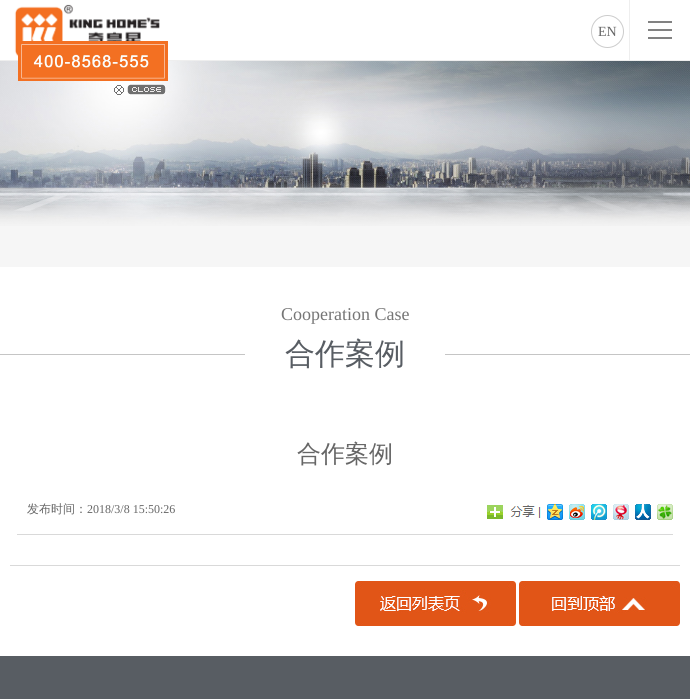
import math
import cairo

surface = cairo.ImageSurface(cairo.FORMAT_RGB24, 690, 699)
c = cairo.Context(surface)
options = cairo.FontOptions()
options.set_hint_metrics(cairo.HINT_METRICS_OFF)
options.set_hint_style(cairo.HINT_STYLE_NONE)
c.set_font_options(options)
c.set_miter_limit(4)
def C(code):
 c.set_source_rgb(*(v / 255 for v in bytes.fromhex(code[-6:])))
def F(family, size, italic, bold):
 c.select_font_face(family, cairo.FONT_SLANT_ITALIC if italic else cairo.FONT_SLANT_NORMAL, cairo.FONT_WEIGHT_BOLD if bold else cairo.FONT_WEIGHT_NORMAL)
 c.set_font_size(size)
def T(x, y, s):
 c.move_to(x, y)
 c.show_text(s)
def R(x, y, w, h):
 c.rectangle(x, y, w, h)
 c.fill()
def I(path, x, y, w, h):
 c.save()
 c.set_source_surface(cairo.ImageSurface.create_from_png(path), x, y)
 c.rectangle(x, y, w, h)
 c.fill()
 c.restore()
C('f6f6f6')
c.paint()
C('ffffff')
R(0,0,690,60)
C('eeeeee')
R(0,60,690,1)
I('1.png',14,4,146,53)
c.arc(607.5,31.5,16,0,2 * math.pi)
C('cccccc')
c.set_line_width(1)
c.stroke()
F('Liberation Serif',14,0,0)
C('666666')
T(598,36,'EN')
C('eeeeee')
R(629,0,1,60)
C('828282')
R(648,21,24,2)
R(648,29,24,2)
R(648,37,24,2)
I('4.png',0,61,690,165)
I('2.png',18,41,150,40)
I('3.png',114,84,52,11)
C('ffffff')
R(0,267,690,389)
F('Liberation Serif',18,0,0)
C('757575')
T(281,320,'Cooperation Case')
C('c5c5c5')
R(0,354,690,1)
C('ffffff')
R(245,354,200,1)
F('WenQuanYi Zen Hei Medium',30,0,0)
C('585d63')
T(285,364,'合作案例')
F('WenQuanYi Zen Hei Medium',24,0,0)
C('666666')
T(297,462,'合作案例')
C('d9d9d9')
R(17,534,656,1)
F('WenQuanYi Zen Hei Medium',12,0,0)
C('666666')
T(27,513,'发布时间：')
F('Liberation Serif',12,0,0)
T(87,513,'2018/3/8 15:50:26')
I('5.png',487,504,186,16)
C('d9d9d9')
R(10,565,670,1)
I('6.png',355,581,161,45)
I('7.png',519,581,161,45)
C('585d63')
R(0,656,690,43)
surface.write_to_png('o.png')
